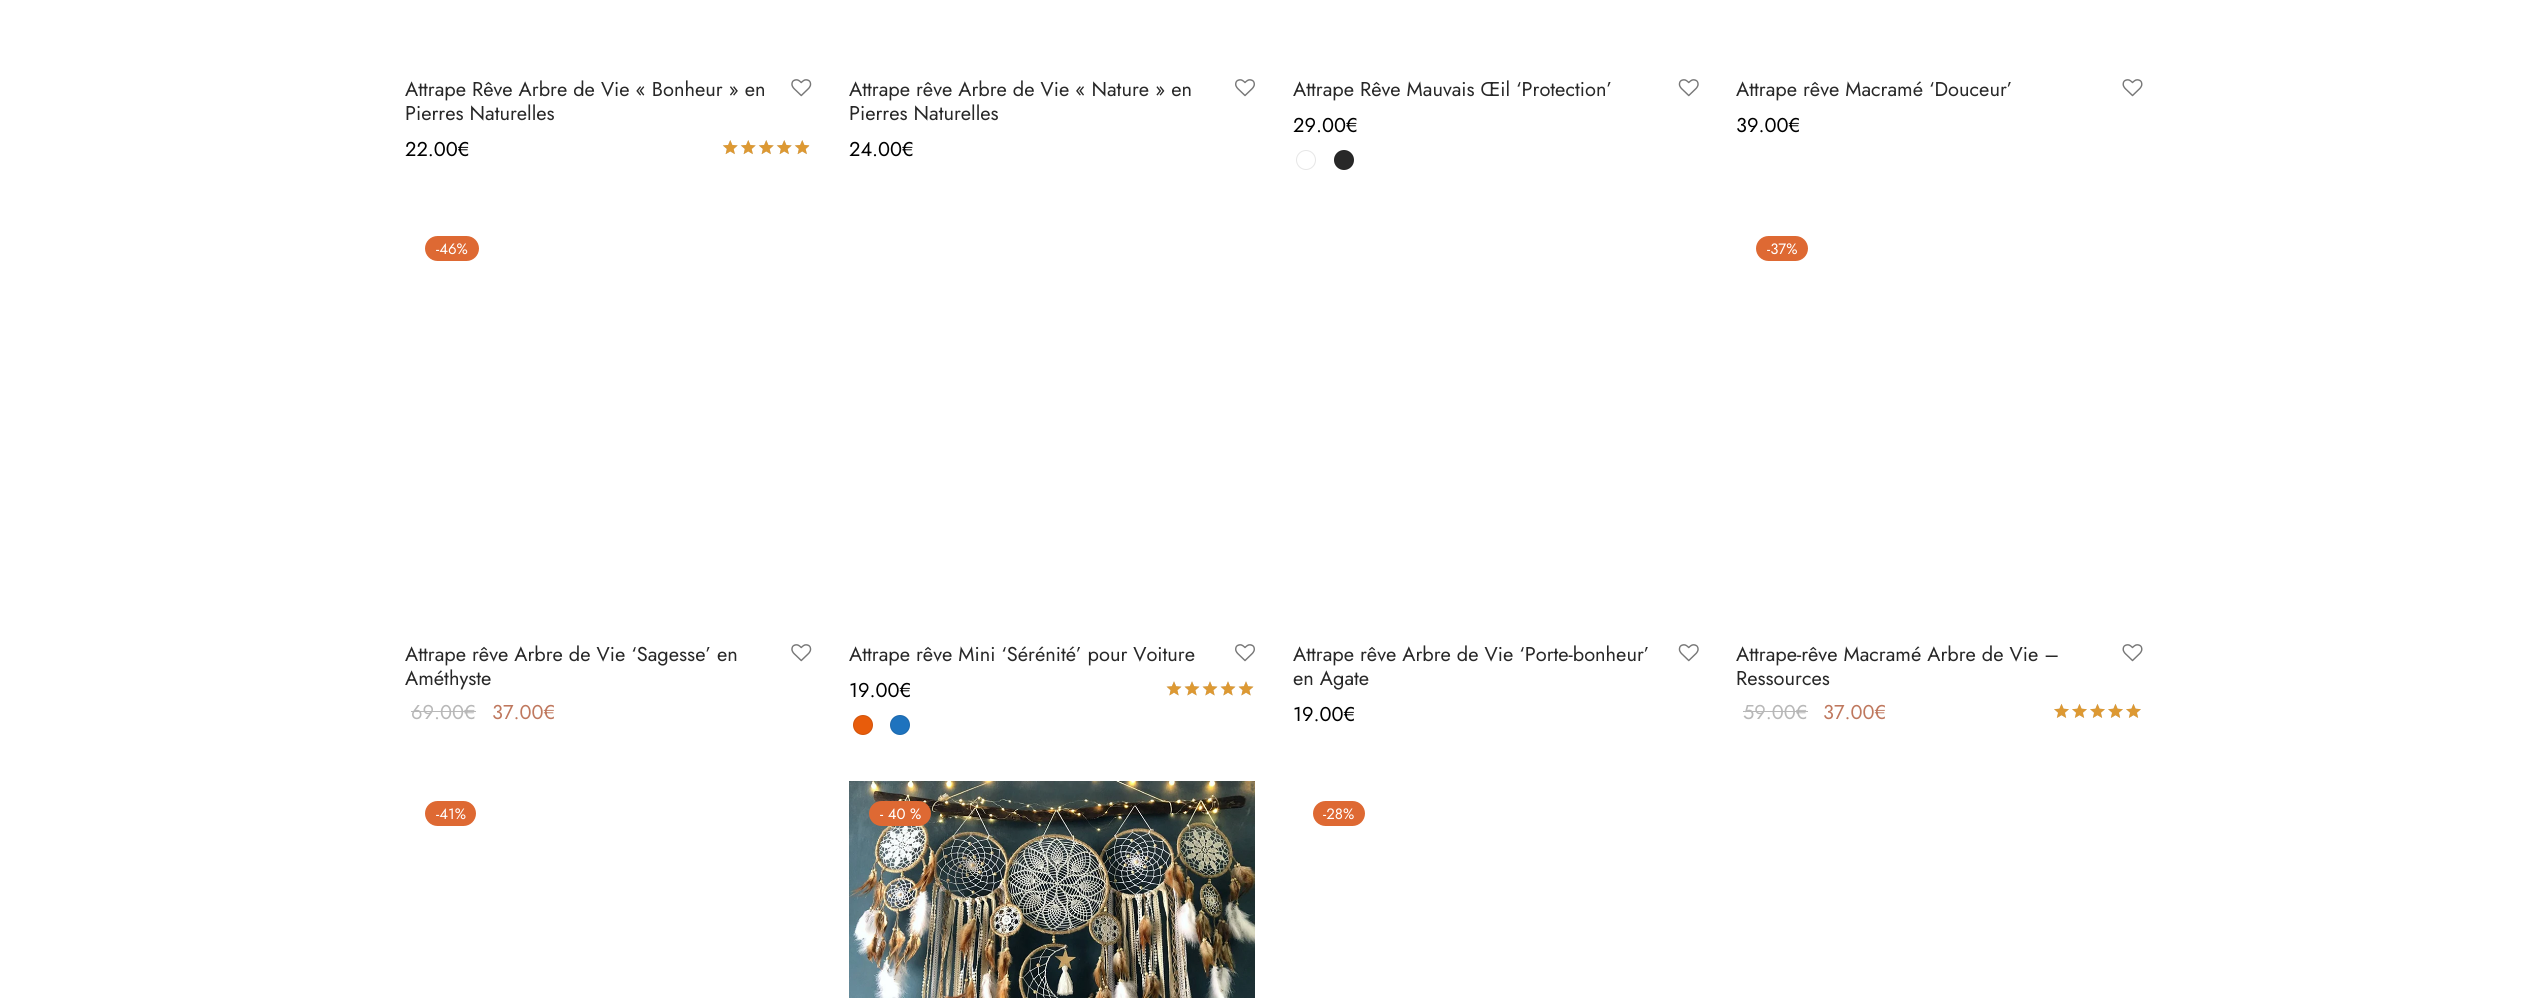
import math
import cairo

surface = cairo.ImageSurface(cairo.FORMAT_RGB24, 2547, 998)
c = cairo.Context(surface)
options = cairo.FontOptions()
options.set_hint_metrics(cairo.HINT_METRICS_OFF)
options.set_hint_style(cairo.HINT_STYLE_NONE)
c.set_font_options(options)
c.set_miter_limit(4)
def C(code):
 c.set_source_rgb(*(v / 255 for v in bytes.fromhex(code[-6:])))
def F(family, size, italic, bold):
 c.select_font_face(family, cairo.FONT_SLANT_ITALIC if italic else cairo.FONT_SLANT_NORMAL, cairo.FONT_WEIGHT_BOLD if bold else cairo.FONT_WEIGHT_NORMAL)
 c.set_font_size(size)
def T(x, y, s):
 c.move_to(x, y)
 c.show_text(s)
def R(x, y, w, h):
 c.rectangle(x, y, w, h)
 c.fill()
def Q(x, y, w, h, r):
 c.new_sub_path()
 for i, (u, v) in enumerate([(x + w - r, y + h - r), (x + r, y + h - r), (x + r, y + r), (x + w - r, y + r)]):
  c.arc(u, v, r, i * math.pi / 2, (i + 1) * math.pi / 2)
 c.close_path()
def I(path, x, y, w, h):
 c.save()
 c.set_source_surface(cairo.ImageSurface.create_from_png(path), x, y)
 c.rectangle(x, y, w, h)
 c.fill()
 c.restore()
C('ffffff')
c.paint()
F('Jost',20,0,0)
C('282828')
T(405,96,'Attrape Rêve Arbre de Vie « Bonheur » en')
T(405,120,'Pierres Naturelles')
I('1.png',791,79,21,18)
C('000000')
T(405,156,'22.00€')
I('3.png',723,140,87,14)
I('2.png',722,140,87,15)
C('282828')
T(849,96,'Attrape rêve Arbre de Vie « Nature » en')
T(849,120,'Pierres Naturelles')
I('4.png',1235,79,20,18)
C('000000')
T(849,156,'24.00€')
C('282828')
T(1293,96,'Attrape Rêve Mauvais Œil ‘Protection’')
I('5.png',1678,79,21,18)
C('000000')
T(1293,132,'29.00€')
c.new_path()
c.arc(1306,160,9.5,0,2 * math.pi)
C('e6e6e6')
c.set_line_width(1)
c.stroke()
C('282828')
c.arc(1344,160,10,0,2 * math.pi)
c.fill()
c.arc(1344,160,9.5,0,2 * math.pi)
c.set_source_rgba(0,0,0,0.1)
c.stroke()
C('282828')
T(1736,96,'Attrape rêve Macramé ‘Douceur’')
I('6.png',2122,79,21,18)
C('000000')
T(1736,132,'39.00€')
C('de6933')
Q(425,236,54,25,12.5)
c.fill()
F('Jost',15,0,0)
C('ffffff')
T(436,254,'-46%')
F('Jost',20,0,0)
C('282828')
T(405,661,'Attrape rêve Arbre de Vie ‘Sagesse’ en')
T(405,685,'Améthyste')
I('1.png',791,644,21,18)
C('b8b8b8')
T(411,719,'69.00€')
R(411,711,65,1)
C('bf785e')
T(492,719,'37.00€')
C('282828')
T(849,661,'Attrape rêve Mini ‘Sérénité’ pour Voiture')
I('4.png',1235,644,20,18)
C('000000')
T(849,697,'19.00€')
I('7.png',1166,681,88,15)
I('8.png',1166,681,88,15)
C('e85c0b')
c.arc(863,725,10,0,2 * math.pi)
c.fill()
c.arc(863,725,9.5,0,2 * math.pi)
c.set_source_rgba(0,0,0,0.1)
c.stroke()
C('1e73be')
c.arc(900,725,10,0,2 * math.pi)
c.fill()
c.arc(900,725,9.5,0,2 * math.pi)
c.set_source_rgba(0,0,0,0.1)
c.stroke()
C('282828')
T(1293,661,'Attrape rêve Arbre de Vie ‘Porte-bonheur’')
T(1293,685,'en Agate')
I('5.png',1678,644,21,18)
C('000000')
T(1293,721,'19.00€')
C('de6933')
Q(1756,236,52,25,12.5)
c.fill()
F('Jost',15,0,0)
C('ffffff')
T(1767,254,'-37%')
F('Jost',20,0,0)
C('282828')
T(1736,661,'Attrape-rêve Macramé Arbre de Vie –')
T(1736,685,'Ressources')
I('6.png',2122,644,21,18)
C('b8b8b8')
T(1743,719,'59.00€')
R(1743,711,65,1)
C('bf785e')
T(1823,719,'37.00€')
I('10.png',2054,704,87,14)
I('9.png',2054,703,87,15)
C('de6933')
Q(425,801,51,25,12.5)
c.fill()
F('Jost',15,0,0)
C('ffffff')
T(436,819,'-41%')
I('11.png',849,781,406,217)
C('de6933')
Q(869,801,62,25,12.5)
c.fill()
C('ffffff')
T(880,819,'- 40 %')
C('de6933')
Q(1313,801,52,25,12.5)
c.fill()
C('ffffff')
T(1323,819,'-28%')
surface.write_to_png('o.png')
